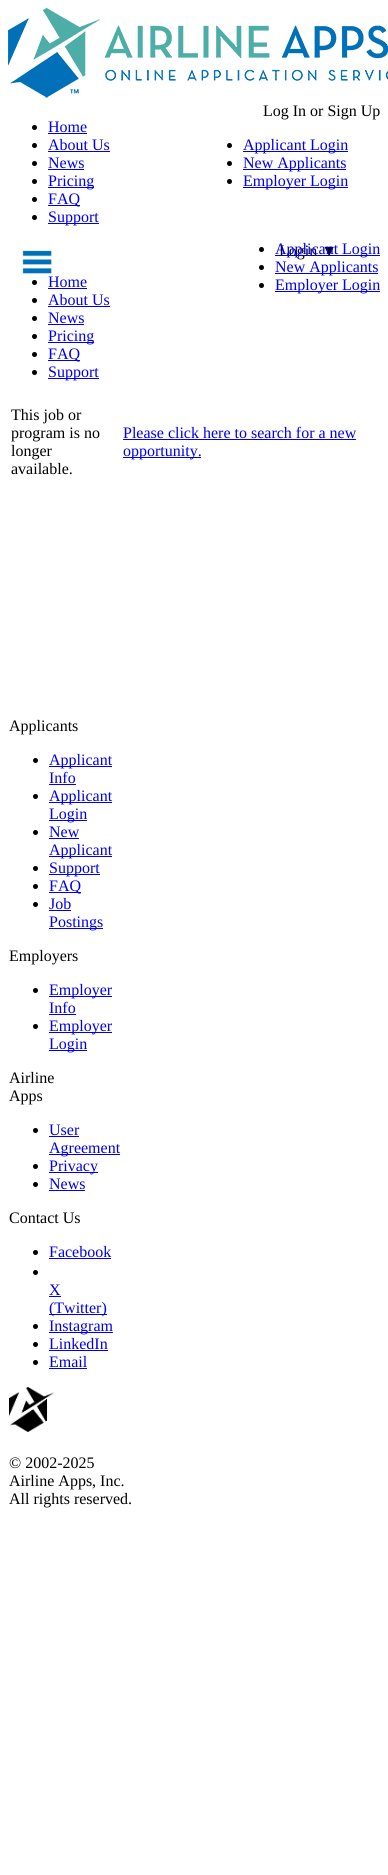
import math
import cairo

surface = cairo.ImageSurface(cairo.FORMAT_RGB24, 388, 1875)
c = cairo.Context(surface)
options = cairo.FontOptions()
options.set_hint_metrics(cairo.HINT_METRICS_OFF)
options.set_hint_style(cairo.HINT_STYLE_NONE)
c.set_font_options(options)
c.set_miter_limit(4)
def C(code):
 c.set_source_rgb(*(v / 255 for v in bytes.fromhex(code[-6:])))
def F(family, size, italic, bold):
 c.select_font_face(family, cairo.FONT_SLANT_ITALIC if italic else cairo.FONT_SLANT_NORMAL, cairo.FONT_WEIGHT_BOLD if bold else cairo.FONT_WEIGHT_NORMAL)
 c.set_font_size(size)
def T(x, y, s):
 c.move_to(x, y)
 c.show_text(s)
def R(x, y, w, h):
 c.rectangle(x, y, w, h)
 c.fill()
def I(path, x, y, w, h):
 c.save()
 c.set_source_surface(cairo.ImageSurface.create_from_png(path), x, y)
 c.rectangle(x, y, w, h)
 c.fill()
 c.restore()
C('ffffff')
c.paint()
C('000000')
c.arc(34.5,127.5,2.5,0,2 * math.pi)
c.fill()
F('Liberation Serif',16,0,0)
C('0000ee')
T(48,132,'Home')
R(48,133,39,1)
C('000000')
c.new_path()
c.arc(34.5,145.5,2.5,0,2 * math.pi)
c.fill()
C('0000ee')
T(48,150,'About Us')
R(48,151,62,1)
C('000000')
c.new_path()
c.arc(34.5,163.5,2.5,0,2 * math.pi)
c.fill()
C('0000ee')
T(48,168,'News')
R(48,169,36,1)
C('000000')
c.new_path()
c.arc(34.5,181.5,2.5,0,2 * math.pi)
c.fill()
C('0000ee')
R(48,187,46,1)
T(48,186,'Pricing')
C('000000')
c.new_path()
c.arc(34.5,199.5,2.5,0,2 * math.pi)
c.fill()
C('0000ee')
R(48,205,32,1)
T(48,204,'FAQ')
C('000000')
c.new_path()
c.arc(34.5,217.5,2.5,0,2 * math.pi)
c.fill()
C('0000ee')
R(48,223,51,1)
T(48,222,'Support')
I('1.png',8,8,380,90)
C('000000')
T(263,116,'Log In or Sign Up')
c.new_path()
c.arc(229.5,145.5,2.5,0,2 * math.pi)
c.fill()
C('0000ee')
R(243,151,105,1)
T(243,150,'Applicant Login')
C('000000')
c.new_path()
c.arc(229.5,163.5,2.5,0,2 * math.pi)
c.fill()
C('0000ee')
R(243,169,103,1)
T(243,168,'New Applicants')
C('000000')
c.new_path()
c.arc(229.5,181.5,2.5,0,2 * math.pi)
c.fill()
C('0000ee')
R(243,187,105,1)
T(243,186,'Employer Login')
C('000000')
c.new_path()
c.arc(261.5,249.5,2.5,0,2 * math.pi)
c.fill()
T(279,256,'Login ▼')
C('0000ee')
R(275,255,105,1)
T(275,254,'Applicant Login')
C('000000')
c.new_path()
c.arc(261.5,267.5,2.5,0,2 * math.pi)
c.fill()
C('0000ee')
R(275,273,103,1)
T(275,272,'New Applicants')
C('000000')
c.new_path()
c.arc(261.5,285.5,2.5,0,2 * math.pi)
c.fill()
C('0000ee')
R(275,291,105,1)
T(275,290,'Employer Login')
I('2.png',22,250,30,24)
C('000000')
c.arc(34.5,282.5,2.5,0,2 * math.pi)
c.fill()
C('0000ee')
T(48,287,'Home')
R(48,288,39,1)
C('000000')
c.new_path()
c.arc(34.5,300.5,2.5,0,2 * math.pi)
c.fill()
C('0000ee')
T(48,305,'About Us')
R(48,306,62,1)
C('000000')
c.new_path()
c.arc(34.5,318.5,2.5,0,2 * math.pi)
c.fill()
C('0000ee')
T(48,323,'News')
R(48,324,36,1)
C('000000')
c.new_path()
c.arc(34.5,336.5,2.5,0,2 * math.pi)
c.fill()
C('0000ee')
R(48,342,46,1)
T(48,341,'Pricing')
C('000000')
c.new_path()
c.arc(34.5,354.5,2.5,0,2 * math.pi)
c.fill()
C('0000ee')
R(48,360,32,1)
T(48,359,'FAQ')
C('000000')
c.new_path()
c.arc(34.5,372.5,2.5,0,2 * math.pi)
c.fill()
C('0000ee')
R(48,378,51,1)
T(48,377,'Support')
C('000000')
T(11,420,'This job or')
T(11,438,'program is no')
T(11,456,'longer')
T(11,474,'available.')
C('0000ee')
T(123,438,'Please click here to search for a new')
R(123,439,233,1)
R(123,457,78,1)
T(123,456,'opportunity.')
C('000000')
T(9,731,'Applicants')
c.new_path()
c.arc(35.5,760.5,2.5,0,2 * math.pi)
c.fill()
C('0000ee')
R(49,766,63,1)
T(49,765,'Applicant')
T(49,783,'Info')
R(49,784,27,1)
C('000000')
c.new_path()
c.arc(35.5,796.5,2.5,0,2 * math.pi)
c.fill()
C('0000ee')
R(49,802,63,1)
T(49,801,'Applicant')
R(49,820,38,1)
T(49,819,'Login')
C('000000')
c.new_path()
c.arc(35.5,832.5,2.5,0,2 * math.pi)
c.fill()
C('0000ee')
T(49,837,'New')
R(49,838,30,1)
R(49,856,63,1)
T(49,855,'Applicant')
C('000000')
c.new_path()
c.arc(35.5,868.5,2.5,0,2 * math.pi)
c.fill()
C('0000ee')
R(49,874,51,1)
T(49,873,'Support')
C('000000')
c.new_path()
c.arc(35.5,886.5,2.5,0,2 * math.pi)
c.fill()
C('0000ee')
R(49,892,32,1)
T(49,891,'FAQ')
C('000000')
c.new_path()
c.arc(35.5,904.5,2.5,0,2 * math.pi)
c.fill()
C('0000ee')
T(49,909,'Job')
R(49,910,22,1)
R(49,928,54,1)
T(49,927,'Postings')
C('000000')
T(9,961,'Employers')
c.new_path()
c.arc(35.5,990.5,2.5,0,2 * math.pi)
c.fill()
C('0000ee')
R(49,996,63,1)
T(49,995,'Employer')
T(49,1013,'Info')
R(49,1014,27,1)
C('000000')
c.new_path()
c.arc(35.5,1026.5,2.5,0,2 * math.pi)
c.fill()
C('0000ee')
R(49,1032,63,1)
T(49,1031,'Employer')
R(49,1050,38,1)
T(49,1049,'Login')
C('000000')
T(9,1083,'Airline')
T(9,1101,'Apps')
c.new_path()
c.arc(35.5,1130.5,2.5,0,2 * math.pi)
c.fill()
C('0000ee')
T(49,1135,'User')
R(49,1136,30,1)
R(49,1154,71,1)
T(49,1153,'Agreement')
C('000000')
c.new_path()
c.arc(35.5,1166.5,2.5,0,2 * math.pi)
c.fill()
C('0000ee')
R(49,1172,49,1)
T(49,1171,'Privacy')
C('000000')
c.new_path()
c.arc(35.5,1184.5,2.5,0,2 * math.pi)
c.fill()
C('0000ee')
T(49,1189,'News')
R(49,1190,36,1)
C('000000')
T(9,1223,'Contact Us')
c.new_path()
c.arc(35.5,1252.5,2.5,0,2 * math.pi)
c.fill()
C('0000ee')
T(49,1257,'Facebook')
R(49,1258,62,1)
C('000000')
c.new_path()
c.arc(35.5,1272.5,2.5,0,2 * math.pi)
c.fill()
C('0000ee')
T(49,1295,'X')
R(49,1296,12,1)
R(49,1314,58,1)
T(49,1313,'(Twitter)')
C('000000')
c.new_path()
c.arc(35.5,1326.5,2.5,0,2 * math.pi)
c.fill()
C('0000ee')
R(49,1332,64,1)
T(49,1331,'Instagram')
C('000000')
c.new_path()
c.arc(35.5,1344.5,2.5,0,2 * math.pi)
c.fill()
C('0000ee')
T(49,1349,'LinkedIn')
R(49,1350,59,1)
C('000000')
c.new_path()
c.arc(35.5,1362.5,2.5,0,2 * math.pi)
c.fill()
C('0000ee')
T(49,1367,'Email')
R(49,1368,38,1)
I('3.png',9,1387,45,45)
C('000000')
T(9,1468,'© 2002-2025')
T(9,1486,'Airline Apps, Inc.')
T(9,1504,'All rights reserved.')
surface.write_to_png('o.png')
